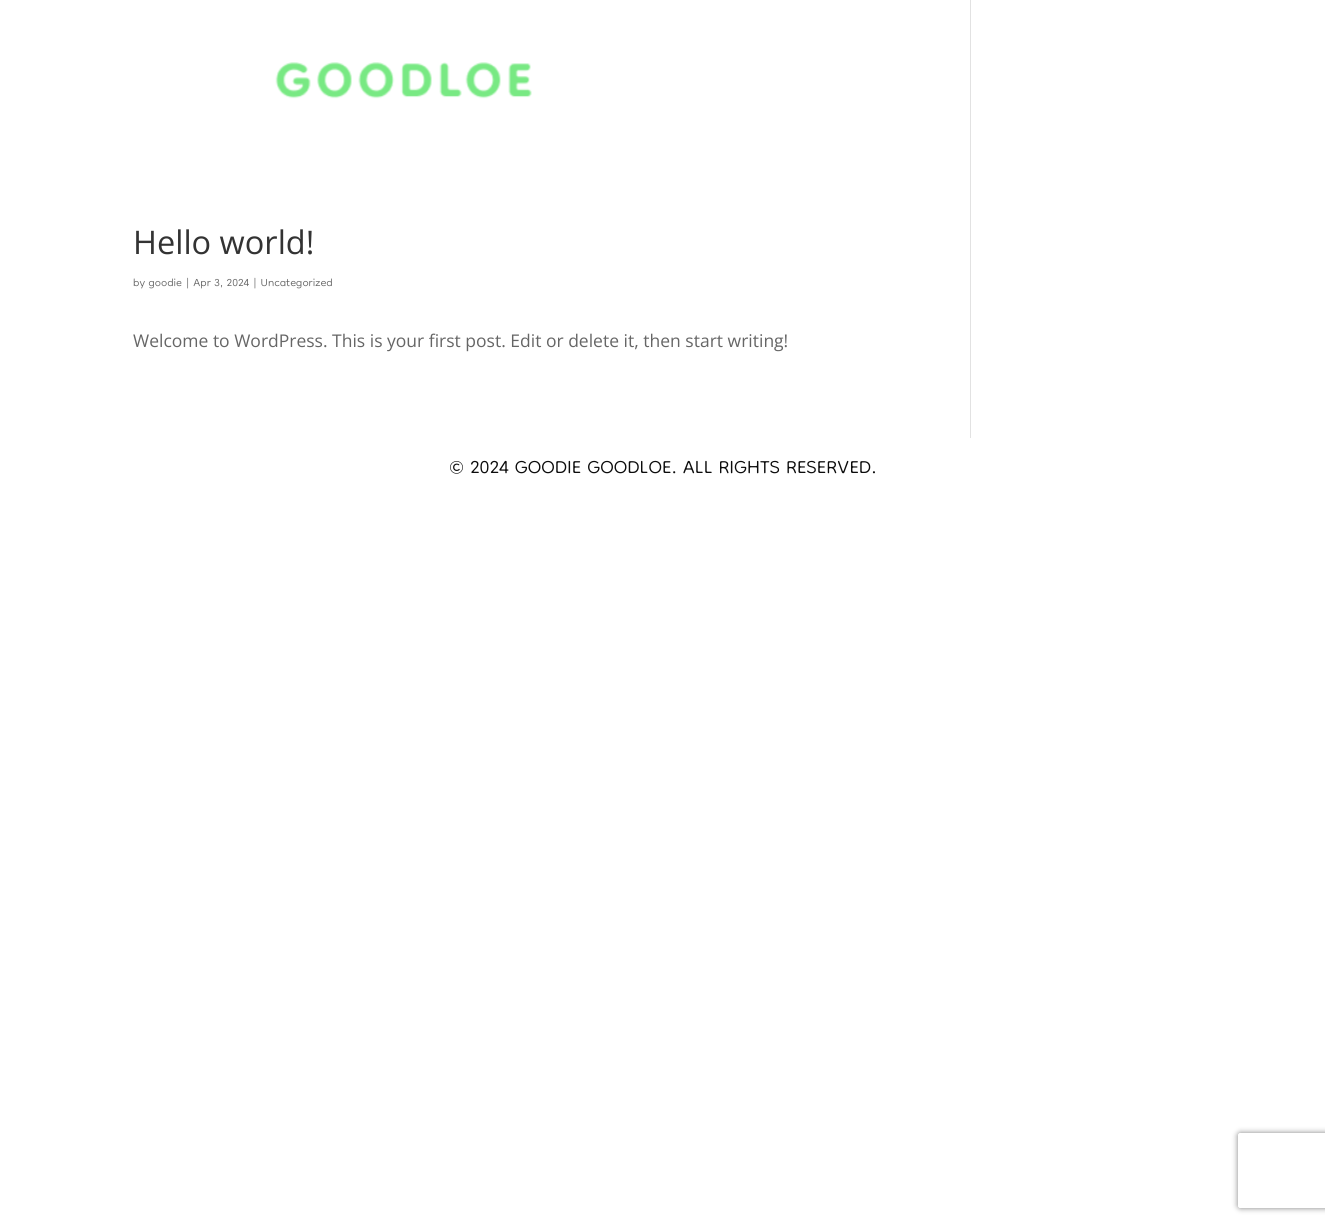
import math
import cairo

surface = cairo.ImageSurface(cairo.FORMAT_RGB24, 1325, 1224)
c = cairo.Context(surface)
options = cairo.FontOptions()
options.set_hint_metrics(cairo.HINT_METRICS_OFF)
options.set_hint_style(cairo.HINT_STYLE_NONE)
c.set_font_options(options)
c.set_miter_limit(4)
def C(code):
 c.set_source_rgb(*(v / 255 for v in bytes.fromhex(code[-6:])))
def F(family, size, italic, bold):
 c.select_font_face(family, cairo.FONT_SLANT_ITALIC if italic else cairo.FONT_SLANT_NORMAL, cairo.FONT_WEIGHT_BOLD if bold else cairo.FONT_WEIGHT_NORMAL)
 c.set_font_size(size)
def T(x, y, s):
 c.move_to(x, y)
 c.show_text(s)
def R(x, y, w, h):
 c.rectangle(x, y, w, h)
 c.fill()
def Q(x, y, w, h, r):
 c.new_sub_path()
 for i, (u, v) in enumerate([(x + w - r, y + h - r), (x + r, y + h - r), (x + r, y + r), (x + w - r, y + r)]):
  c.arc(u, v, r, i * math.pi / 2, (i + 1) * math.pi / 2)
 c.close_path()
def S(x, y, w, h, r, blur, alpha):
 c.push_group_with_content(cairo.CONTENT_ALPHA)
 c.set_operator(cairo.OPERATOR_SOURCE)
 for i in range(15, -16, -2):
  e = blur * i / 6
  if min(w, h) + 2 * e > 0:
   c.set_source_rgba(0, 0, 0, alpha * math.erfc((i - 1) / 8.5) / 2)
   Q(x - e, y - e, w + 2 * e, h + 2 * e, max(0, min(r + e + blur * .6, min(w, h) / 2 + e)))
   c.fill()
 c.mask(c.pop_group())
def I(path, x, y, w, h):
 c.save()
 c.set_source_surface(cairo.ImageSurface.create_from_png(path), x, y)
 c.rectangle(x, y, w, h)
 c.fill()
 c.restore()
C('ffffff')
c.paint()
I('1.png',275,62,257,37)
F('Open Sans',32.5,0,0)
C('333333')
T(133,254,'Hello world!')
F('Dongle Light',17.5,0,0)
C('666666')
T(133,286,'by goodie | Apr 3, 2024 | Uncategorized')
F('Open Sans',17.5,0,0)
T(133,347,'Welcome to WordPress. This is your first post. Edit or delete it, then start writing!')
C('e2e2e2')
R(970,0,1,438)
F('Dongle Light',30,0,0)
C('0c0c0c')
T(449,473,'© 2024 GOODIE GOODLOE. ALL RIGHTS RESERVED.')
c.save()
c.set_fill_rule(cairo.FILL_RULE_EVEN_ODD)
c.new_path()
c.move_to(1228,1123)
c.line_to(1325,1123)
c.line_to(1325,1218)
c.line_to(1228,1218)
c.close_path()
c.move_to(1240.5,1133)
c.line_to(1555.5,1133)
c.curve_to(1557,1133,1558,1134,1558,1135.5)
c.line_to(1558,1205.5)
c.curve_to(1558,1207,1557,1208,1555.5,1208)
c.line_to(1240.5,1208)
c.curve_to(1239,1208,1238,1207,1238,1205.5)
c.line_to(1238,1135.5)
c.curve_to(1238,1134,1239,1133,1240.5,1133)
c.close_path()
c.clip()
C('808080')
S(1238,1133,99,75,2.5,3,1)
c.restore()
surface.write_to_png('o.png')
